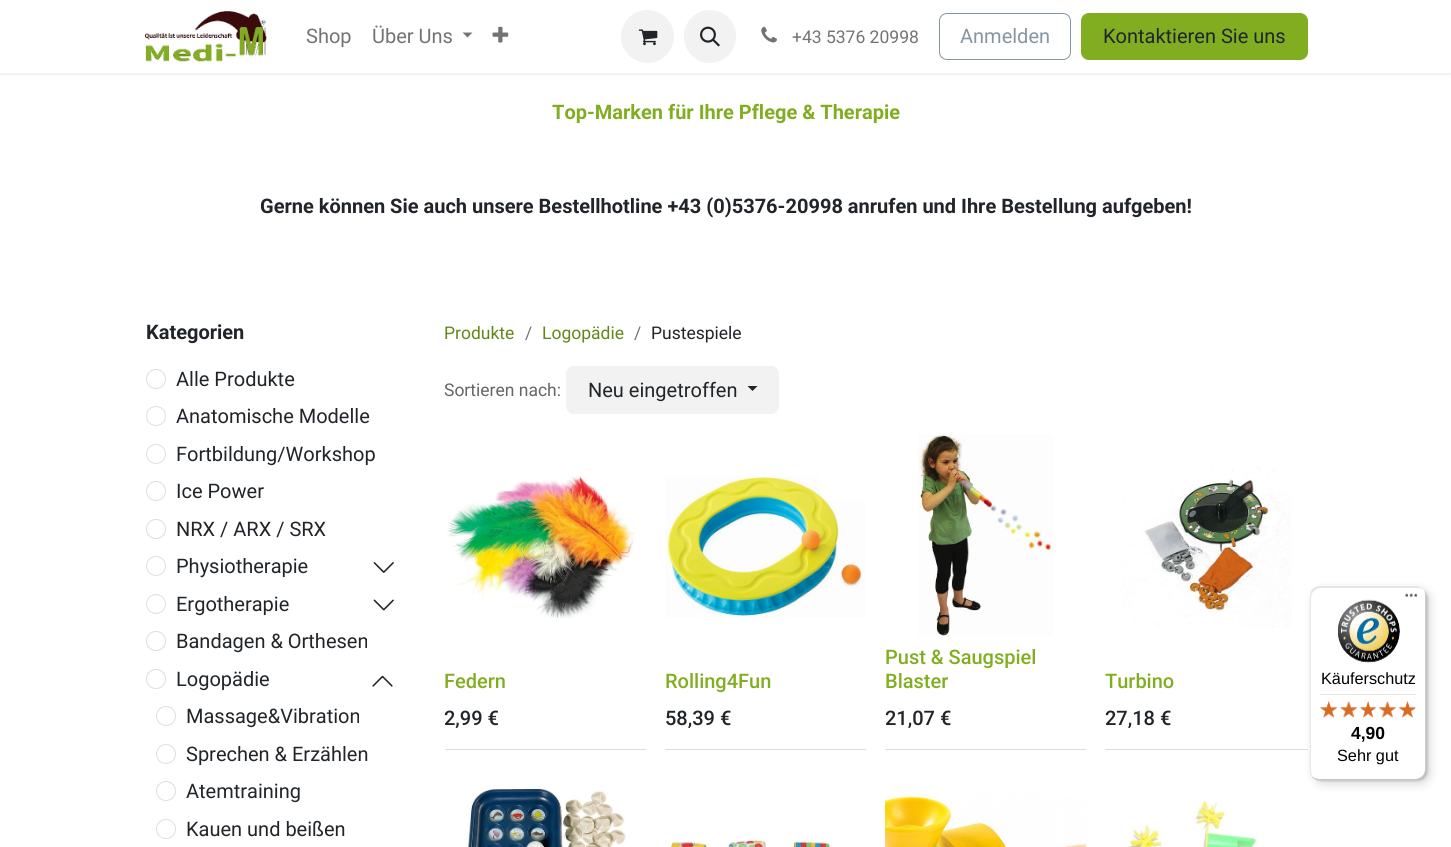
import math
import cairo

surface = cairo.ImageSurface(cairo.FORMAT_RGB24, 1451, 847)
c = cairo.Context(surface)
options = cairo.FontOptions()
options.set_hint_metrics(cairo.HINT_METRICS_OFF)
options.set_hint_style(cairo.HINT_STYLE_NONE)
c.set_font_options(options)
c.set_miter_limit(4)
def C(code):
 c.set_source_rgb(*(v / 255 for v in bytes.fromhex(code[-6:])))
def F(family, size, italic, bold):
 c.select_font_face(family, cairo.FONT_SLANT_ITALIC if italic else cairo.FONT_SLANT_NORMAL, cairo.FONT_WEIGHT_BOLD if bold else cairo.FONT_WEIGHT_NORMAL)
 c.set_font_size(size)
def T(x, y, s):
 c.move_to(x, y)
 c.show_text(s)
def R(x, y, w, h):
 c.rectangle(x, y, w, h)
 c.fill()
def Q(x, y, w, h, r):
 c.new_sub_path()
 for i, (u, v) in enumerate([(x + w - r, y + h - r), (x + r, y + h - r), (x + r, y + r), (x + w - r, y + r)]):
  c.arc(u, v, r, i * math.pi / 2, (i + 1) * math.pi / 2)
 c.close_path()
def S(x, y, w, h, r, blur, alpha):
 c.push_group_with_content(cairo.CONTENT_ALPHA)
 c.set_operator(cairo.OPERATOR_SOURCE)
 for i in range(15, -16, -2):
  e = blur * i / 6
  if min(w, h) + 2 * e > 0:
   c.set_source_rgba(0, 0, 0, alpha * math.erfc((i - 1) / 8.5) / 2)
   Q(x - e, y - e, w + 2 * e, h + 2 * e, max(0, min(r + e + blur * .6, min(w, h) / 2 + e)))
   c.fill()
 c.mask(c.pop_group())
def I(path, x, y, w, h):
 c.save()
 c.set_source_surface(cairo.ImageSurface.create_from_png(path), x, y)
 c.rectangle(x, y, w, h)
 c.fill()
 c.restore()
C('ffffff')
c.paint()
C('000000')
S(0,1,1451,73,0,2,.1)
C('ffffff')
R(0,0,1451,73)
I('1.png',145,11,122,51)
F('Roboto',20,0,0)
C('737373')
T(306,43,'Shop')
T(372,43,'Über Uns')
c.new_path()
c.move_to(462.5,32.5)
c.line_to(472.5,32.5)
c.line_to(467.5,37.5)
c.close_path()
c.fill()
I('2.png',492,26,17,17)
C('f2f2f2')
c.arc(647.5,36.5,26.5,0,2 * math.pi)
c.fill()
I('3.png',638,29,20,17)
Q(684,10,52,53,26)
c.fill()
I('4.png',700,26,20,21)
I('5.png',761,26,16,17)
F('Roboto',17.5,0,0)
C('737373')
T(792,43,'+43 5376 20998')
Q(939.5,13.5,131,46,7.5)
C('8595a2')
c.set_line_width(1)
c.stroke()
F('Roboto',20,0,0)
T(960,43,'Anmelden')
C('81ae20')
Q(1081.5,13.5,226,46,7.5)
c.fill_preserve()
c.stroke()
C('212529')
T(1103,43,'Kontaktieren Sie uns')
F('Roboto',20,0,1)
C('81ae20')
T(552,119,'Top‑Marken für Ihre Pflege & Therapie')
C('212529')
T(260,213,'Gerne können Sie auch unsere Bestellhotline +43 (0)5376-20998 anrufen und Ihre Bestellung aufgeben!')
T(146,339,'Kategorien')
c.new_path()
c.arc(156,379,9.5,0,2 * math.pi)
C('dededf')
c.stroke()
F('Roboto',20,0,0)
C('212529')
T(176,386,'Alle Produkte')
c.new_path()
c.arc(156,416,9.5,0,2 * math.pi)
C('dededf')
c.stroke()
C('212529')
T(176,423,'Anatomische Modelle')
c.new_path()
c.arc(156,454,9.5,0,2 * math.pi)
C('dededf')
c.stroke()
C('212529')
T(176,461,'Fortbildung/Workshop')
c.new_path()
c.arc(156,491,9.5,0,2 * math.pi)
C('dededf')
c.stroke()
C('212529')
T(176,498,'Ice Power')
c.new_path()
c.arc(156,529,9.5,0,2 * math.pi)
C('dededf')
c.stroke()
C('212529')
T(176,536,'NRX / ARX / SRX')
c.new_path()
c.arc(156,566,9.5,0,2 * math.pi)
C('dededf')
c.stroke()
C('212529')
T(176,573,'Physiotherapie')
I('6.png',373,562,21,11)
c.arc(156,604,9.5,0,2 * math.pi)
C('dededf')
c.stroke()
C('212529')
T(176,611,'Ergotherapie')
I('7.png',373,599,21,12)
c.arc(156,641,9.5,0,2 * math.pi)
C('dededf')
c.stroke()
C('212529')
T(176,648,'Bandagen & Orthesen')
c.new_path()
c.arc(156,679,9.5,0,2 * math.pi)
C('dededf')
c.stroke()
C('212529')
T(176,686,'Logopädie')
I('8.png',372,675,21,12)
c.arc(166,716,9.5,0,2 * math.pi)
C('dededf')
c.stroke()
C('212529')
T(186,723,'Massage&Vibration')
c.new_path()
c.arc(166,754,9.5,0,2 * math.pi)
C('dededf')
c.stroke()
C('212529')
T(186,761,'Sprechen & Erzählen')
c.new_path()
c.arc(166,791,9.5,0,2 * math.pi)
C('dededf')
c.stroke()
C('212529')
T(186,798,'Atemtraining')
c.new_path()
c.arc(166,829,9.5,0,2 * math.pi)
C('dededf')
c.stroke()
C('212529')
T(186,836,'Kauen und beißen')
F('Roboto',17.5,0,0)
C('648719')
T(444,339,'Produkte')
C('6c757d')
T(525,339,'/')
C('648719')
T(542,339,'Logopädie')
C('6c757d')
T(634,339,'/')
C('212529')
T(651,339,'Pustespiele')
C('646669')
T(444,396,'Sortieren nach:')
C('f3f2f2')
Q(566.5,366.5,212,47,7.5)
c.fill_preserve()
c.stroke()
F('Roboto',20,0,0)
C('212529')
T(588,397,'Neu eingetroffen')
c.new_path()
c.move_to(747.5,386)
c.line_to(757.5,386)
c.line_to(752.5,391)
c.close_path()
c.fill()
C('dededf')
R(445,749,201,1)
I('9.png',447,475,189,144)
F('Roboto Medium',20,0,0)
C('81ae20')
T(444,688,'Federn')
C('212529')
T(444,725,'2,99 €')
C('dededf')
R(665,749,201,1)
I('10.png',665,476,200,142)
C('81ae20')
T(665,688,'Rolling4Fun')
C('212529')
T(665,725,'58,39 €')
C('dededf')
R(885,749,201,1)
I('11.png',918,434,135,202)
C('81ae20')
T(885,664,'Pust & Saugspiel')
T(885,688,'Blaster')
C('212529')
T(885,725,'21,07 €')
C('dededf')
R(1105,749,203,1)
I('12.png',1121,466,171,162)
C('81ae20')
T(1105,688,'Turbino')
C('212529')
T(1105,725,'27,18 €')
I('13.png',468,786,158,61)
I('14.png',669,839,163,8)
I('15.png',885,794,202,53)
I('16.png',1129,800,129,47)
C('000000')
S(1314,590,116,194,10,5,.15)
S(1311,588,117,193,10,1,.15)
C('ffffff')
Q(1310,586,116,194,10)
c.fill()
c.set_source_rgba(0,0,0,0.1)
c.new_path()
c.move_to(1321,588)
c.line_to(1418,588)
c.curve_to(1420,588,1422,589,1424,590)
c.curve_to(1422,588,1419,586,1416,586)
c.line_to(1320,586)
c.curve_to(1314,586,1310,590,1310,596)
c.line_to(1310,770)
c.curve_to(1310,773,1311,776,1313,778)
c.curve_to(1312,776,1311,774,1311,771)
c.line_to(1311,598)
c.curve_to(1311,592,1316,588,1321,588)
c.close_path()
c.fill()
c.set_source_rgba(0,0,0,0.2)
c.new_path()
c.move_to(1312,777)
c.curve_to(1314,779,1317,780,1320,780)
c.line_to(1416,780)
c.curve_to(1422,780,1426,776,1426,770)
c.line_to(1426,596)
c.curve_to(1426,594,1425,591,1424,590)
c.curve_to(1425,591,1425,593,1425,595)
c.line_to(1425,769)
c.curve_to(1425,774,1421,779,1415,779)
c.line_to(1319,779)
c.curve_to(1316,779,1314,778,1312,777)
c.close_path()
c.fill()
I('17.png',1405,593,13,4)
c.set_source_rgba(0.196,0.196,0.196,0.2)
c.new_path()
c.move_to(1312,776)
c.curve_to(1314,779,1317,780,1320,780)
c.line_to(1416,780)
c.curve_to(1422,780,1426,776,1426,770)
c.line_to(1426,769)
c.curve_to(1426,775,1421,779,1416,779)
c.line_to(1319,779)
c.curve_to(1317,779,1314,778,1312,776)
c.close_path()
c.fill()
c.set_source_rgba(1,1,1,0.3)
c.new_path()
c.move_to(1312,776)
c.curve_to(1314,779,1317,780,1320,780)
c.line_to(1416,780)
c.curve_to(1422,780,1426,776,1426,770)
c.line_to(1426,769)
c.curve_to(1426,775,1421,779,1416,779)
c.line_to(1319,779)
c.curve_to(1317,779,1314,778,1312,776)
c.close_path()
c.fill()
I('18.png',1338,599,62,64)
F('Liberation Sans',16.25,0,0)
C('000000')
T(1321,684,'Käuferschutz')
C('e5e5e5')
R(1320,694,96,1)
I('19.png',1320,701,17,16)
I('20.png',1340,701,17,17)
I('21.png',1360,701,16,17)
I('22.png',1378,701,18,17)
I('23.png',1399,701,17,17)
I('24.png',1320,701,17,17)
I('25.png',1340,701,18,17)
I('26.png',1360,701,16,17)
I('27.png',1378,701,18,17)
I('28.png',1399,701,16,17)
F('Liberation Sans',17.5,0,1)
C('000000')
T(1351,739,'4,90')
F('Liberation Sans',16.25,0,0)
T(1337,761,'Sehr gut')
surface.write_to_png('o.png')
